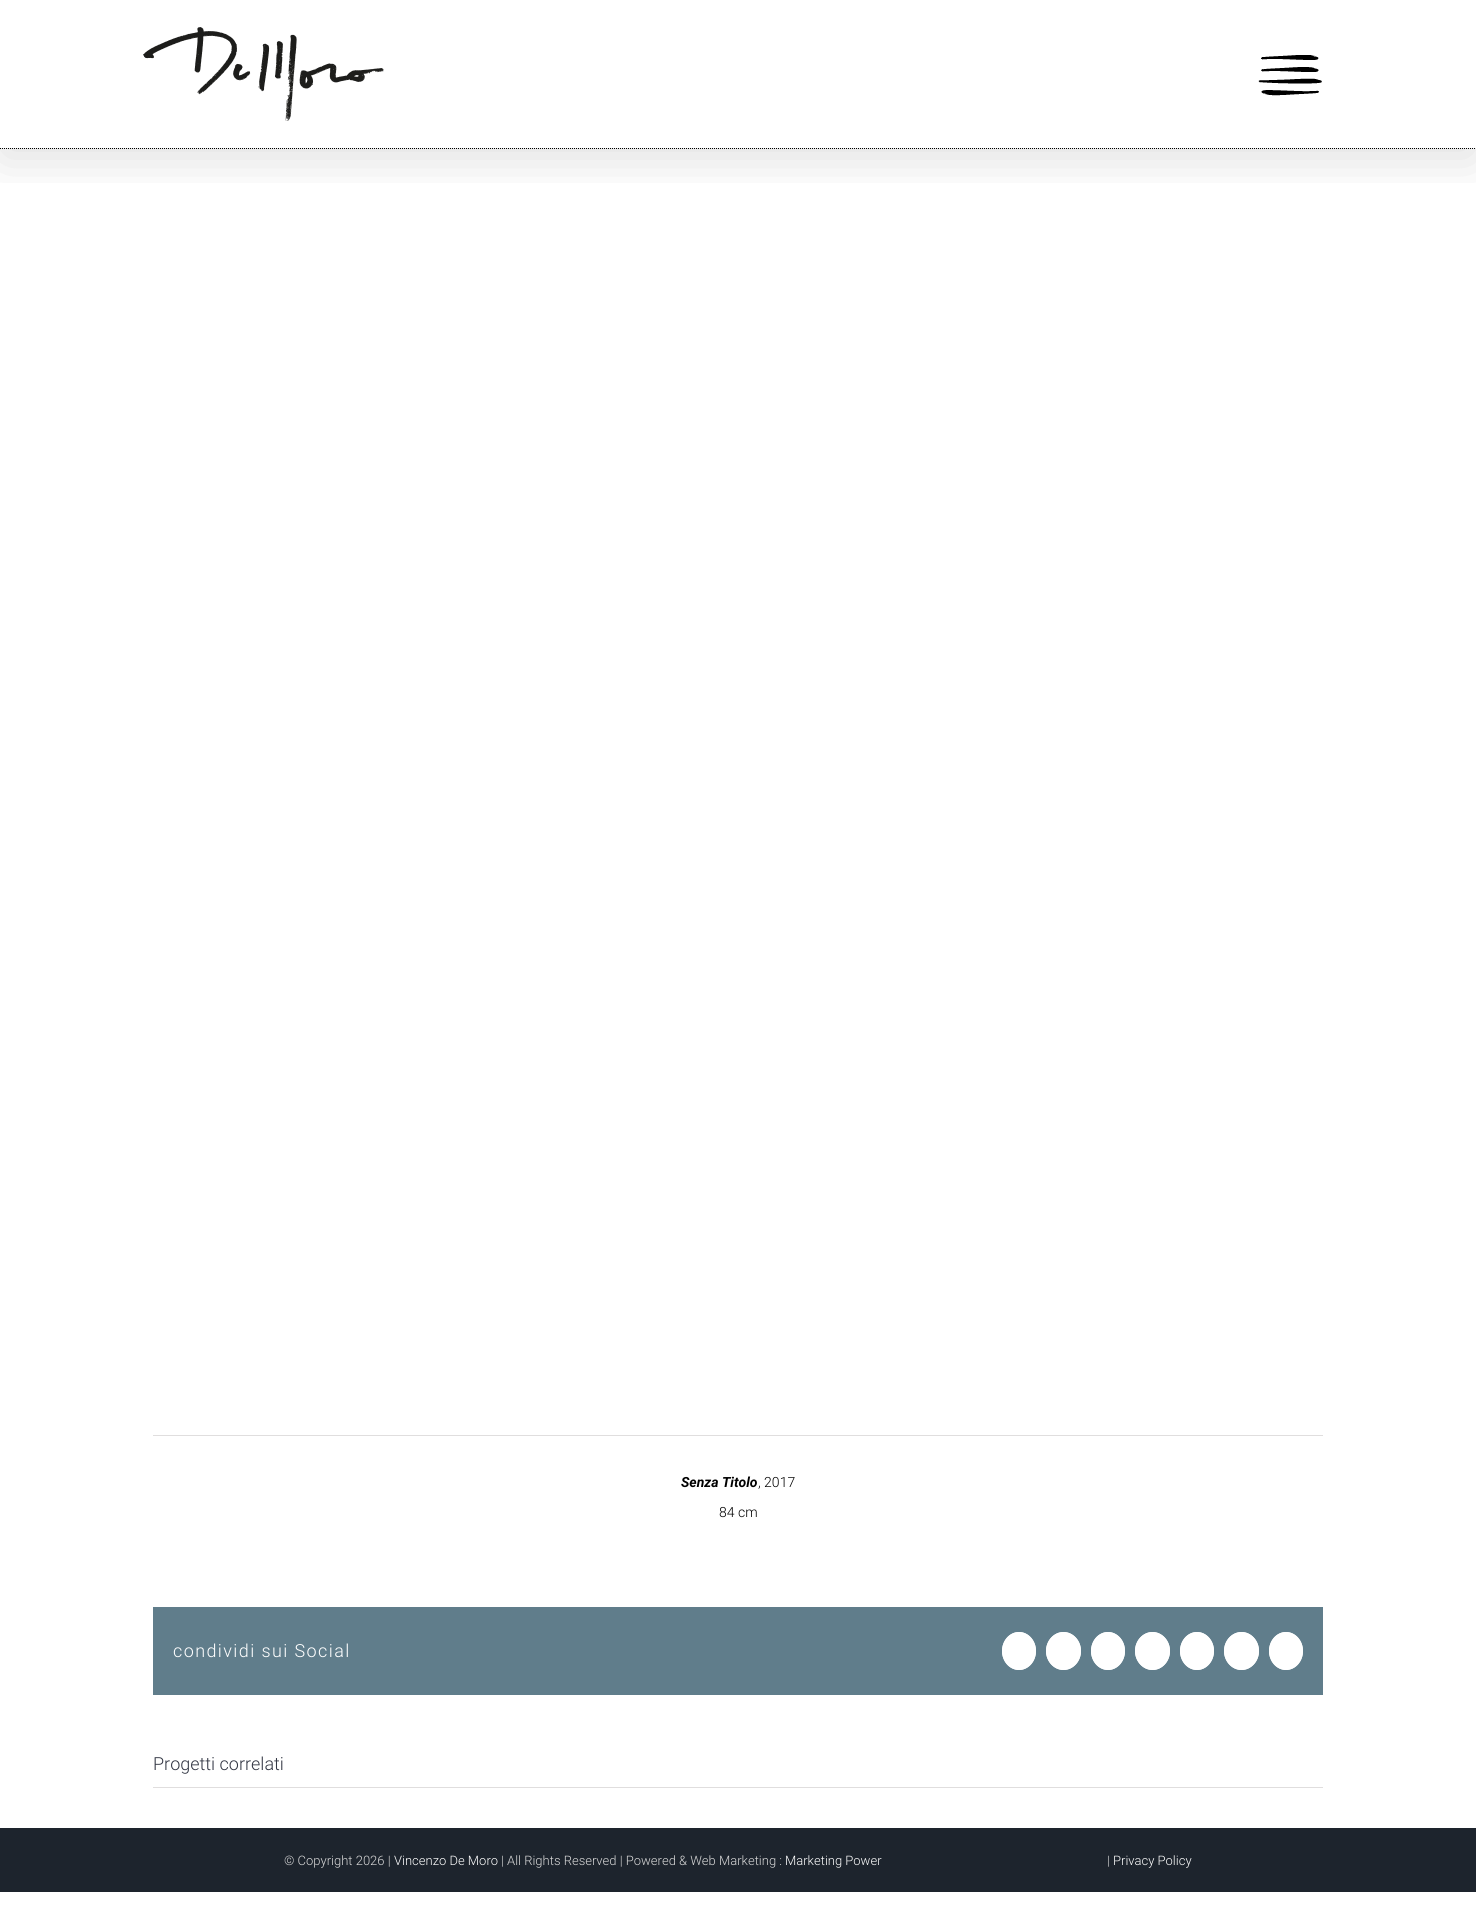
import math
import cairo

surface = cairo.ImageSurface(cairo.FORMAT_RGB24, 1476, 1907)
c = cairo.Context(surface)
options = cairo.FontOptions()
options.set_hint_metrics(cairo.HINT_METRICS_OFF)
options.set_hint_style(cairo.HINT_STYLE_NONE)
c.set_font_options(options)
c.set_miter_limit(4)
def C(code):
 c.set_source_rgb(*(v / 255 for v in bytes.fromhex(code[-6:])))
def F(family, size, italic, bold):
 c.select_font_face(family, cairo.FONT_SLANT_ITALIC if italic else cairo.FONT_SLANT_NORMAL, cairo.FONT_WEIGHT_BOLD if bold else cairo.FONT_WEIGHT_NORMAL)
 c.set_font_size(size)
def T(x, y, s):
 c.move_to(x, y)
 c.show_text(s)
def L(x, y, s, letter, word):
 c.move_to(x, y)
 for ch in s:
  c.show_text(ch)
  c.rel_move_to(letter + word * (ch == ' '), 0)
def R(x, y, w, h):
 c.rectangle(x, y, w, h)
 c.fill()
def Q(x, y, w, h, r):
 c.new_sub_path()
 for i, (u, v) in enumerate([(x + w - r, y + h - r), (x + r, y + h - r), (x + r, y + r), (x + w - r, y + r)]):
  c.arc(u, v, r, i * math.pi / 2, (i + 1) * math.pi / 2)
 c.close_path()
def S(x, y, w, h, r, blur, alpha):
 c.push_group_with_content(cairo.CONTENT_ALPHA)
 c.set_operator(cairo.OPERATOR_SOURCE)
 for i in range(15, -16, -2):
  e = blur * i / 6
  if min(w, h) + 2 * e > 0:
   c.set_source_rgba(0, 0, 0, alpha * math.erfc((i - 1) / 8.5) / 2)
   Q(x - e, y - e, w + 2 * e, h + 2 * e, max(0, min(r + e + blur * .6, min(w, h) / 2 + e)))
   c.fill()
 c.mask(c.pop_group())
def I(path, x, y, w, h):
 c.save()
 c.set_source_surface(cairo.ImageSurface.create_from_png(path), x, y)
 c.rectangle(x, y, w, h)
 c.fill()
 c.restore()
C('ffffff')
c.paint()
c.new_path()
c.move_to(0,148.5)
c.line_to(1476,148.5)
C('000000')
c.set_line_width(1)
c.set_dash([1,1])
c.stroke()
c.save()
c.rectangle(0,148,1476,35)
c.clip()
C('000000')
S(2,12,1472,144,0,25,.14)
c.restore()
I('1.png',143,27,241,94)
I('2.png',1258,55,64,41)
C('e0dede')
R(153,1435,1170,1)
F('Roboto',14,1,1)
C('000000')
T(681,1487,'Senza Titolo')
F('Roboto Light',14,0,0)
T(758,1487,', 2017')
T(719,1517,'84 cm')
C('607d8b')
R(153,1607,1170,88)
F('Roboto Light',18,0,0)
C('ffffff')
L(173,1657,'condividi sui Social',1.4,0)
c.new_path()
c.move_to(1019,1632)
c.curve_to(1028.5,1632,1036,1640.5,1036,1651)
c.curve_to(1036,1661.5,1028.5,1670,1019,1670)
c.curve_to(1009.5,1670,1002,1661.5,1002,1651)
c.curve_to(1002,1640.5,1009.5,1632,1019,1632)
c.close_path()
c.fill()
c.new_path()
c.move_to(1019,1632.5)
c.curve_to(1028,1632.5,1035.5,1641,1035.5,1651)
c.curve_to(1035.5,1661,1028,1669.5,1019,1669.5)
c.curve_to(1010,1669.5,1002.5,1661,1002.5,1651)
c.curve_to(1002.5,1641,1010,1632.5,1019,1632.5)
c.close_path()
c.set_dash([])
c.stroke()
c.new_path()
c.move_to(1063.5,1632)
c.curve_to(1073,1632,1081,1640.5,1081,1651)
c.curve_to(1081,1661.5,1073,1670,1063.5,1670)
c.curve_to(1054,1670,1046,1661.5,1046,1651)
c.curve_to(1046,1640.5,1054,1632,1063.5,1632)
c.close_path()
c.fill()
c.new_path()
c.move_to(1063.5,1632.5)
c.curve_to(1073,1632.5,1080.5,1641,1080.5,1651)
c.curve_to(1080.5,1661,1073,1669.5,1063.5,1669.5)
c.curve_to(1054,1669.5,1046.5,1661,1046.5,1651)
c.curve_to(1046.5,1641,1054,1632.5,1063.5,1632.5)
c.close_path()
c.stroke()
c.new_path()
c.move_to(1108,1632)
c.curve_to(1117.5,1632,1125,1640.5,1125,1651)
c.curve_to(1125,1661.5,1117.5,1670,1108,1670)
c.curve_to(1098.5,1670,1091,1661.5,1091,1651)
c.curve_to(1091,1640.5,1098.5,1632,1108,1632)
c.close_path()
c.fill()
c.new_path()
c.move_to(1108,1632.5)
c.curve_to(1117,1632.5,1124.5,1641,1124.5,1651)
c.curve_to(1124.5,1661,1117,1669.5,1108,1669.5)
c.curve_to(1099,1669.5,1091.5,1661,1091.5,1651)
c.curve_to(1091.5,1641,1099,1632.5,1108,1632.5)
c.close_path()
c.stroke()
c.new_path()
c.move_to(1152.5,1632)
c.curve_to(1162,1632,1170,1640.5,1170,1651)
c.curve_to(1170,1661.5,1162,1670,1152.5,1670)
c.curve_to(1143,1670,1135,1661.5,1135,1651)
c.curve_to(1135,1640.5,1143,1632,1152.5,1632)
c.close_path()
c.fill()
c.new_path()
c.move_to(1152.5,1632.5)
c.curve_to(1162,1632.5,1169.5,1641,1169.5,1651)
c.curve_to(1169.5,1661,1162,1669.5,1152.5,1669.5)
c.curve_to(1143,1669.5,1135.5,1661,1135.5,1651)
c.curve_to(1135.5,1641,1143,1632.5,1152.5,1632.5)
c.close_path()
c.stroke()
c.new_path()
c.move_to(1197,1632)
c.curve_to(1206.5,1632,1214,1640.5,1214,1651)
c.curve_to(1214,1661.5,1206.5,1670,1197,1670)
c.curve_to(1187.5,1670,1180,1661.5,1180,1651)
c.curve_to(1180,1640.5,1187.5,1632,1197,1632)
c.close_path()
c.fill()
c.new_path()
c.move_to(1197,1632.5)
c.curve_to(1206,1632.5,1213.5,1641,1213.5,1651)
c.curve_to(1213.5,1661,1206,1669.5,1197,1669.5)
c.curve_to(1188,1669.5,1180.5,1661,1180.5,1651)
c.curve_to(1180.5,1641,1188,1632.5,1197,1632.5)
c.close_path()
c.stroke()
c.new_path()
c.move_to(1241.5,1632)
c.curve_to(1251,1632,1259,1640.5,1259,1651)
c.curve_to(1259,1661.5,1251,1670,1241.5,1670)
c.curve_to(1232,1670,1224,1661.5,1224,1651)
c.curve_to(1224,1640.5,1232,1632,1241.5,1632)
c.close_path()
c.fill()
c.new_path()
c.move_to(1241.5,1632.5)
c.curve_to(1251,1632.5,1258.5,1641,1258.5,1651)
c.curve_to(1258.5,1661,1251,1669.5,1241.5,1669.5)
c.curve_to(1232,1669.5,1224.5,1661,1224.5,1651)
c.curve_to(1224.5,1641,1232,1632.5,1241.5,1632.5)
c.close_path()
c.stroke()
c.new_path()
c.move_to(1286,1632)
c.curve_to(1295.5,1632,1303,1640.5,1303,1651)
c.curve_to(1303,1661.5,1295.5,1670,1286,1670)
c.curve_to(1276.5,1670,1269,1661.5,1269,1651)
c.curve_to(1269,1640.5,1276.5,1632,1286,1632)
c.close_path()
c.fill()
c.new_path()
c.move_to(1286,1632.5)
c.curve_to(1295,1632.5,1302.5,1641,1302.5,1651)
c.curve_to(1302.5,1661,1295,1669.5,1286,1669.5)
c.curve_to(1277,1669.5,1269.5,1661,1269.5,1651)
c.curve_to(1269.5,1641,1277,1632.5,1286,1632.5)
c.close_path()
c.stroke()
C('e0dede')
R(153,1787,1170,1)
C('323643')
T(153,1770,'Progetti correlati')
C('1d242d')
R(0,1828,1476,64)
F('Roboto Light',13,0,0)
C('d8d8d8')
T(284,1865,'© Copyright 2026 |')
C('ffffff')
T(394,1865,'Vincenzo De Moro')
C('d8d8d8')
T(501,1865,'| All Rights Reserved | Powered & Web Marketing :')
C('ffffff')
T(785,1865,'Marketing Power')
C('d8d8d8')
T(1107,1865,'|')
C('ffffff')
T(1113,1865,'Privacy Policy')
surface.write_to_png('o.png')
